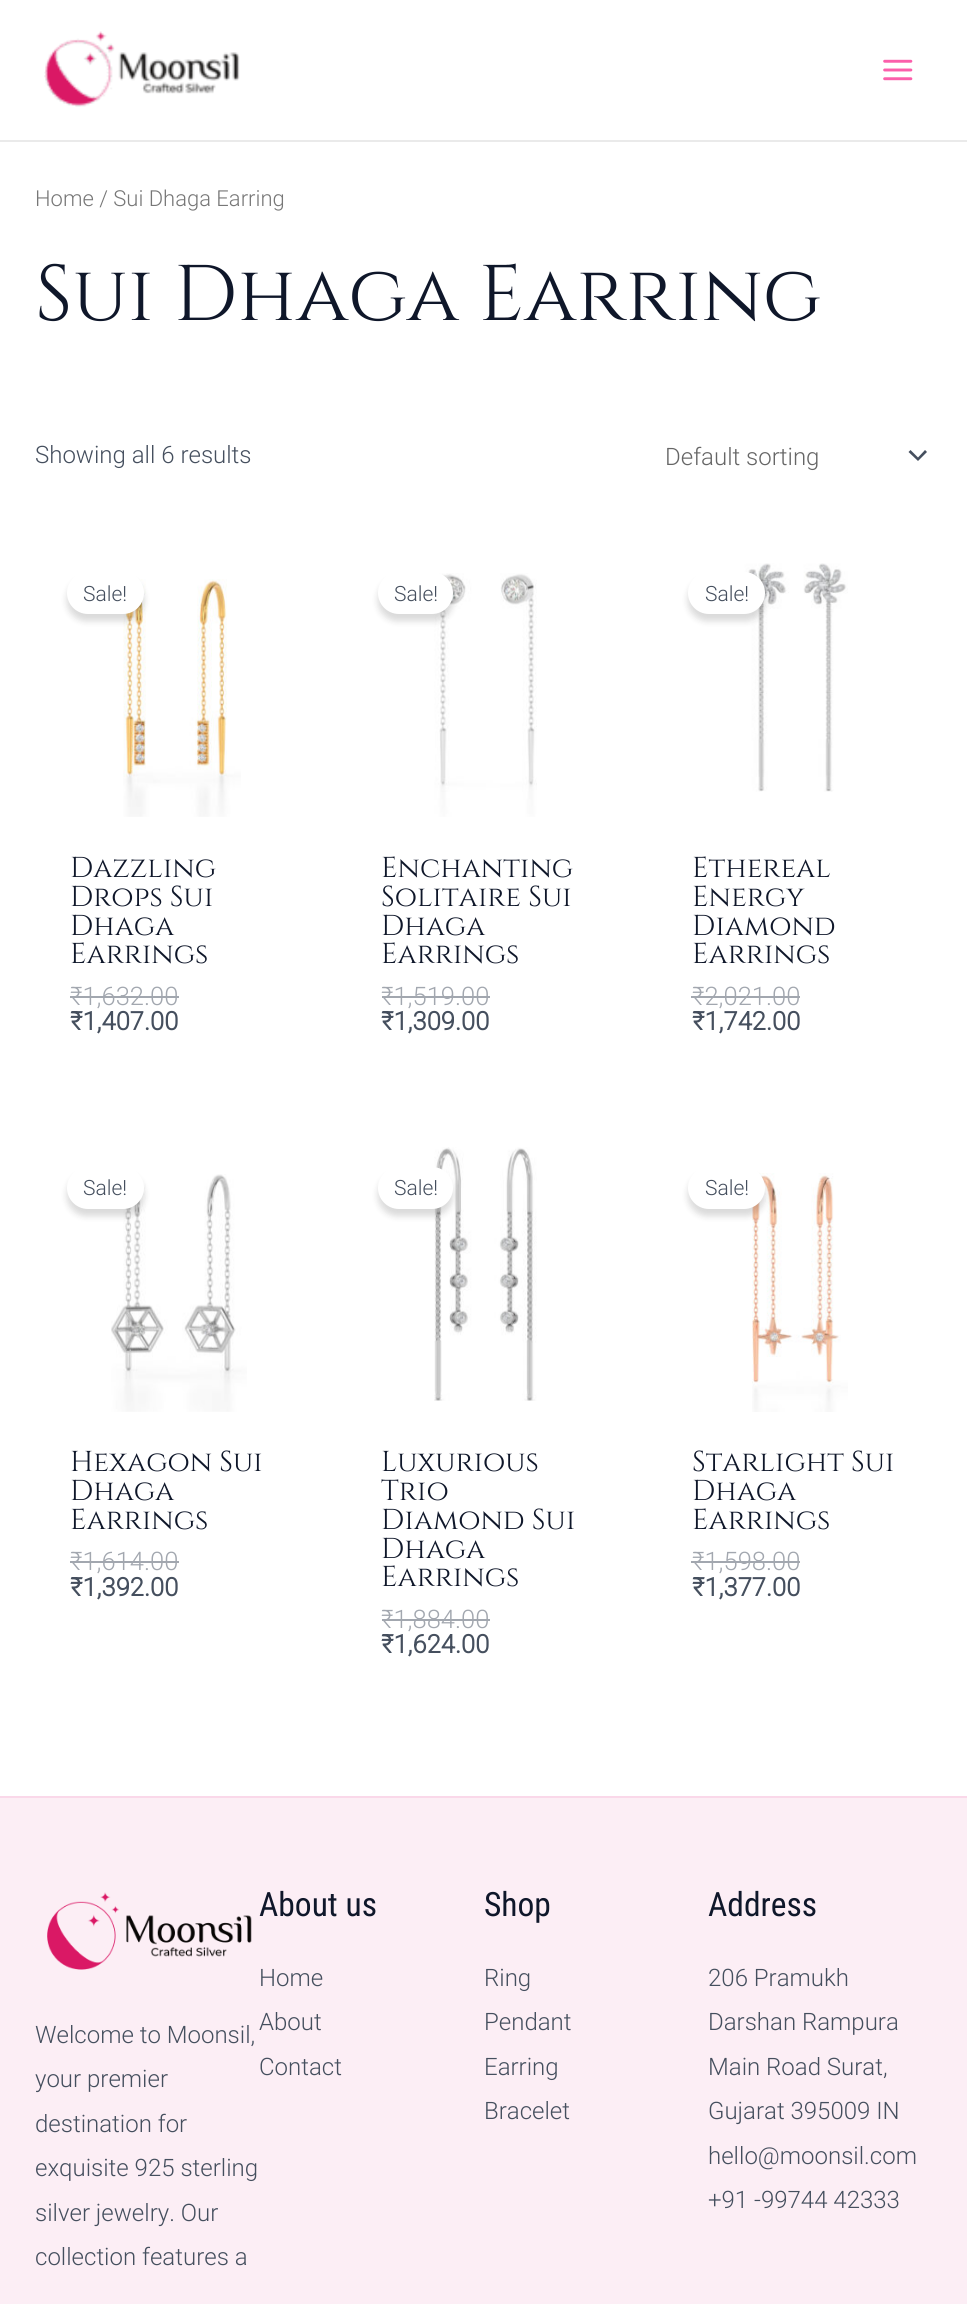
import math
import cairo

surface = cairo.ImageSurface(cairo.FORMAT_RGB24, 967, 2304)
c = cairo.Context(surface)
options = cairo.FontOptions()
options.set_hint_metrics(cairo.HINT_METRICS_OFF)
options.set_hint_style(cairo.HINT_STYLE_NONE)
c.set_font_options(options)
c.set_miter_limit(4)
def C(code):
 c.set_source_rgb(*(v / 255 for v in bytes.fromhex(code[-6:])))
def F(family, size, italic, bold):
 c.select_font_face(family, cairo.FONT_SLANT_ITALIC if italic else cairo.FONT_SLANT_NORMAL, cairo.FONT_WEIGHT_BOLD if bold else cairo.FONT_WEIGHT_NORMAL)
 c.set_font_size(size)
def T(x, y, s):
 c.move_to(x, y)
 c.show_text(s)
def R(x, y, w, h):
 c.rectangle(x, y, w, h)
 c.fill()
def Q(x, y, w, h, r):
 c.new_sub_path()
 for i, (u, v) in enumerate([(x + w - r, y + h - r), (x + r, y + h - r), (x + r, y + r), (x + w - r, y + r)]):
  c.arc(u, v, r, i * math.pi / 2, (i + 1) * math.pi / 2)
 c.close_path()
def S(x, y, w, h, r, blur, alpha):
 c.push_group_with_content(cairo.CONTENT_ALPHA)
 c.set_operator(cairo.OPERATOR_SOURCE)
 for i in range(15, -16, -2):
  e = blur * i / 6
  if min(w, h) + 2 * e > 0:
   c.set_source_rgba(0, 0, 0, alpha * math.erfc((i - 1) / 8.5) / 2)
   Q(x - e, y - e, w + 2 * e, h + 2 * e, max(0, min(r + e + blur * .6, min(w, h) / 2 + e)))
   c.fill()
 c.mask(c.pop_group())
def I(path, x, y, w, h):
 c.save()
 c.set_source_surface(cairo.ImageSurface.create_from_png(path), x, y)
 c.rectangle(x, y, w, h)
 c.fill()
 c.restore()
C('ffffff')
c.paint()
C('eaeaea')
R(0,140,967,2)
I('1.png',44,31,196,76)
I('2.png',883,59,30,22)
F('Roboto Light',22,0,0)
C('777777')
T(35,206,'Home / Sui Dhaga Earring')
F('Cinzel',78.75,0,0)
C('0f172a')
T(35,320,'Sui Dhaga Earring')
F('Roboto Light',24,0,0)
C('454f5e')
T(35,463,'Showing all 6 results')
c.new_path()
c.move_to(908.5,452)
c.line_to(918,461)
c.line_to(927,452)
c.line_to(925,450)
c.line_to(918,457.5)
c.line_to(910.5,450)
c.close_path()
c.fill()
C('666666')
T(665,465,'Default sorting')
I('3.png',123,579,118,238)
C('000000')
S(67,579,77,42,21,3.5,.15)
C('ffffff')
Q(67,572,77,42,21)
c.fill()
F('Roboto Light',21,0,0)
C('454f5e')
T(83,601,'Sale!')
F('Cinzel',28.75,0,0)
C('0f172a')
T(70,877,'Dazzling')
T(70,906,'Drops Sui')
T(70,935,'Dhaga')
T(70,963,'Earrings')
F('Roboto Light',25.5,0,0)
C('a2a7af')
T(70,1005,'₹1,632.00')
R(70,996,109,2)
F('Roboto',25.5,0,1)
C('454f5e')
T(70,1030,'₹1,407.00')
I('4.png',434,573,103,244)
C('000000')
S(378,579,75,42,21,3.5,.15)
C('ffffff')
Q(378,572,75,42,21)
c.fill()
F('Roboto Light',21,0,0)
C('454f5e')
T(394,601,'Sale!')
F('Cinzel',28.75,0,0)
C('0f172a')
T(381,877,'Enchanting')
T(381,906,'Solitaire Sui')
T(381,935,'Dhaga')
T(381,963,'Earrings')
F('Roboto Light',25.5,0,0)
C('a2a7af')
T(381,1005,'₹1,519.00')
R(382,996,108,2)
F('Roboto',25.5,0,1)
C('454f5e')
T(381,1030,'₹1,309.00')
I('5.png',743,563,105,229)
C('000000')
S(688,579,77,42,21,3.5,.15)
C('ffffff')
Q(688,572,77,42,21)
c.fill()
F('Roboto Light',21,0,0)
C('454f5e')
T(705,601,'Sale!')
F('Cinzel',28.75,0,0)
C('0f172a')
T(692,877,'Ethereal')
T(692,906,'Energy')
T(692,935,'Diamond')
T(692,963,'Earrings')
F('Roboto Light',25.5,0,0)
C('a2a7af')
T(692,1005,'₹2,021.00')
R(691,996,109,2)
F('Roboto',25.5,0,1)
C('454f5e')
T(692,1030,'₹1,742.00')
I('6.png',111,1174,136,238)
C('000000')
S(67,1174,77,42,21,3.5,.15)
C('ffffff')
Q(67,1167,77,42,21)
c.fill()
F('Roboto Light',21,0,0)
C('454f5e')
T(83,1195,'Sale!')
F('Cinzel',28.75,0,0)
C('0f172a')
T(70,1471,'Hexagon Sui')
T(70,1500,'Dhaga')
T(70,1529,'Earrings')
F('Roboto Light',25.5,0,0)
C('a2a7af')
T(70,1570,'₹1,614.00')
R(70,1561,109,2)
F('Roboto',25.5,0,1)
C('454f5e')
T(70,1596,'₹1,392.00')
I('7.png',434,1147,103,254)
C('000000')
S(378,1174,75,42,21,3.5,.15)
C('ffffff')
Q(378,1167,75,42,21)
c.fill()
F('Roboto Light',21,0,0)
C('454f5e')
T(394,1195,'Sale!')
F('Cinzel',28.75,0,0)
C('0f172a')
T(381,1471,'Luxurious')
T(381,1500,'Trio')
T(381,1529,'Diamond Sui')
T(381,1558,'Dhaga')
T(381,1586,'Earrings')
F('Roboto Light',25.5,0,0)
C('a2a7af')
T(381,1628,'₹1,884.00')
R(382,1619,108,2)
F('Roboto',25.5,0,1)
C('454f5e')
T(381,1653,'₹1,624.00')
I('8.png',752,1173,96,239)
C('000000')
S(688,1174,77,42,21,3.5,.15)
C('ffffff')
Q(688,1167,77,42,21)
c.fill()
F('Roboto Light',21,0,0)
C('454f5e')
T(705,1195,'Sale!')
F('Cinzel',28.75,0,0)
C('0f172a')
T(692,1471,'Starlight Sui')
T(692,1500,'Dhaga')
T(692,1529,'Earrings')
F('Roboto Light',25.5,0,0)
C('a2a7af')
T(692,1570,'₹1,598.00')
R(691,1561,109,2)
F('Roboto',25.5,0,1)
C('454f5e')
T(692,1596,'₹1,377.00')
C('fceef5')
R(0,1798,967,506)
C('fad8e9')
R(0,1796,967,2)
I('9.png',47,1892,205,78)
F('Roboto Light',24,0,0)
C('454f5e')
T(35,2043,'Welcome to Moonsil,')
T(35,2087,'your premier')
T(35,2132,'destination for')
T(35,2176,'exquisite 925 sterling')
T(35,2221,'silver jewelry. Our')
T(35,2265,'collection features a')
F('Roboto Condensed',33.5,0,0)
C('0f172a')
T(259,1916,'About us')
F('Roboto Light',24,0,0)
C('454f5e')
T(259,1986,'Home')
T(259,2030,'About')
T(259,2075,'Contact')
F('Roboto Condensed',33.5,0,0)
C('0f172a')
T(484,1916,'Shop')
F('Roboto Light',24,0,0)
C('454f5e')
T(484,1986,'Ring')
T(484,2030,'Pendant')
T(484,2075,'Earring')
T(484,2119,'Bracelet')
F('Roboto Condensed',33.5,0,0)
C('0f172a')
T(708,1916,'Address')
F('Roboto Light',24,0,0)
C('454f5e')
T(708,1986,'206 Pramukh')
T(708,2030,'Darshan Rampura')
T(708,2075,'Main Road Surat,')
T(708,2119,'Gujarat 395009 IN')
T(708,2164,'hello@moonsil.com')
T(708,2208,'+91 -99744 42333')
surface.write_to_png('o.png')
